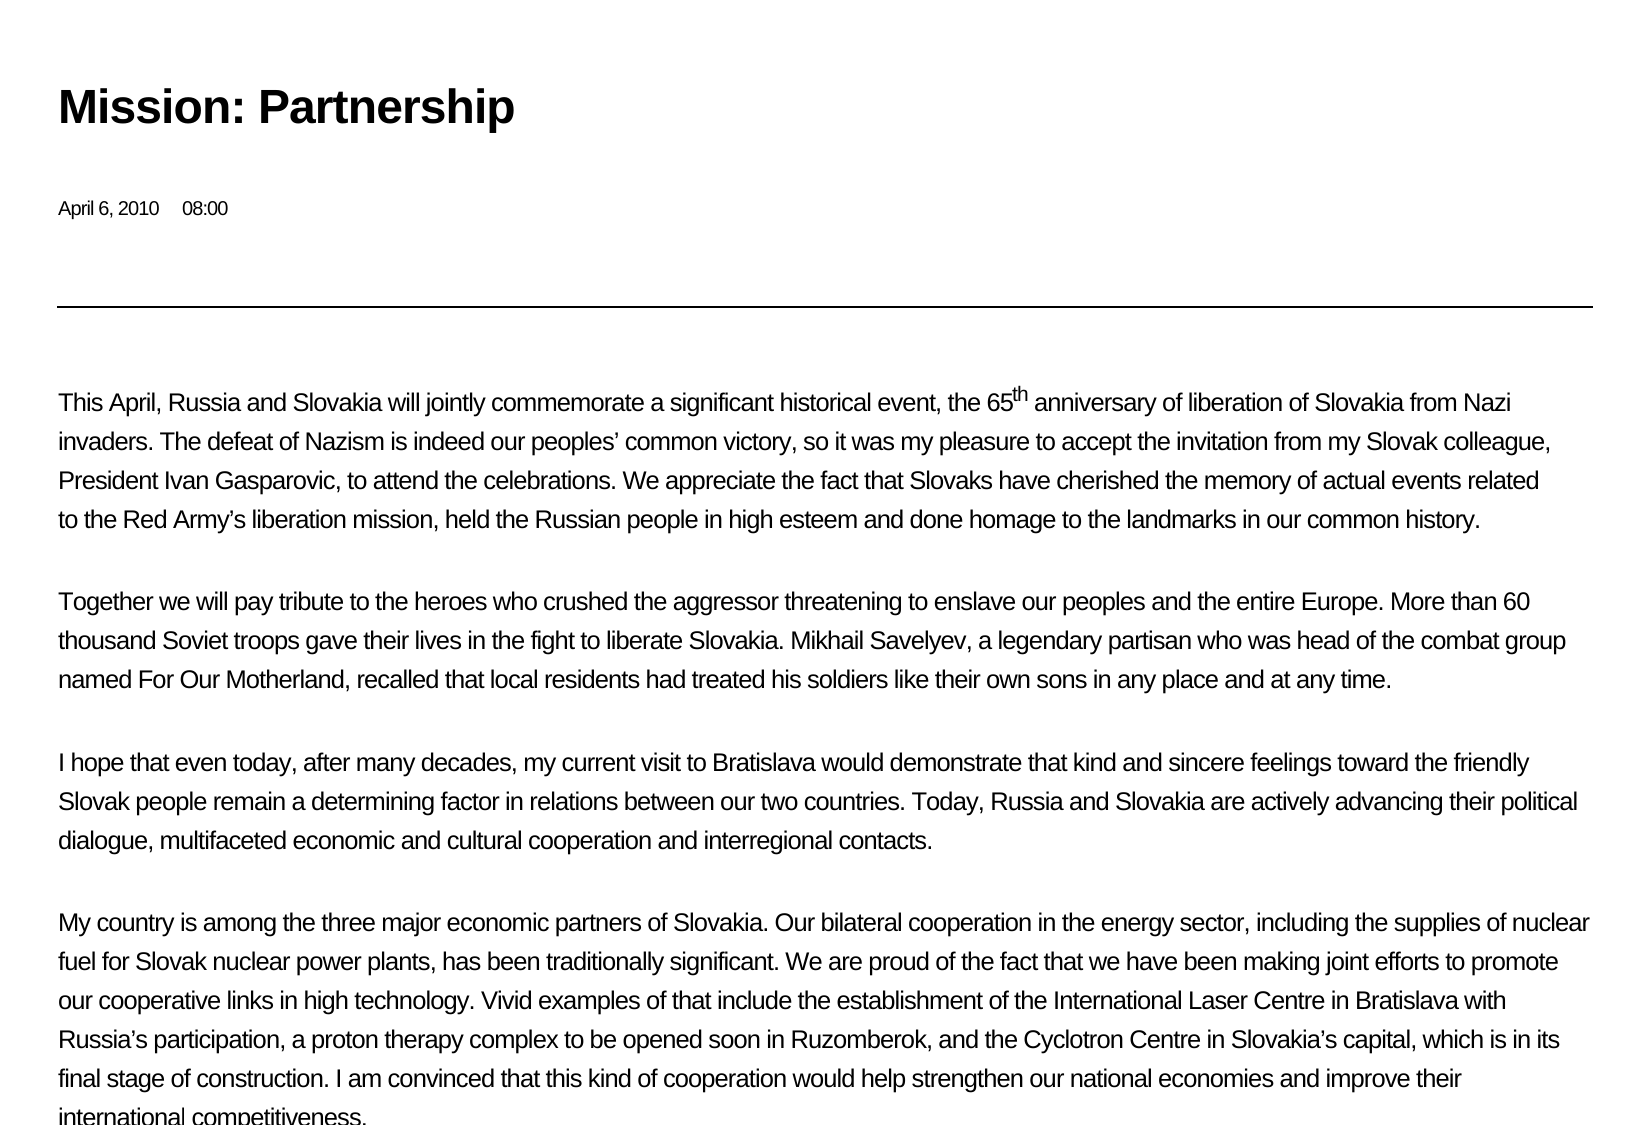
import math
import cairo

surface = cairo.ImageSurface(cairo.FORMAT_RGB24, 1650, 1125)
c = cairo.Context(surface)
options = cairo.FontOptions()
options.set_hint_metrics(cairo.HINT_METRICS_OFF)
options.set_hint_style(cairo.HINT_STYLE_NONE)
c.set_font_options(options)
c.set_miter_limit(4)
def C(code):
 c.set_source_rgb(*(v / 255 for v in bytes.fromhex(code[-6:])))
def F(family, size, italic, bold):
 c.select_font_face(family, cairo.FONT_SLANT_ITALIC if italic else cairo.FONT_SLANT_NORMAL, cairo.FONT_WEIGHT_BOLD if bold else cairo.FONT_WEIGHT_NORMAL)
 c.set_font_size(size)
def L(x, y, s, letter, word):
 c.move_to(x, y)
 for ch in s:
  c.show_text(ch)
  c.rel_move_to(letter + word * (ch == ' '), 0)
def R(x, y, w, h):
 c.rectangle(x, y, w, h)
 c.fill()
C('ffffff')
c.paint()
C('000000')
R(57,306,1536,2)
F('Liberation Sans',48,0,1)
L(58,123,'Mission: Partnership',-.9,0)
F('Liberation Sans',20,0,0)
L(58,215,'April 6, 2010',-.9,0)
L(182,215,'08:00',-.9,0)
F('Liberation Sans',25.5,0,0)
L(58,411,'This April, Russia and Slovakia will jointly commemorate a significant historical event, the 65',-.9,0)
F('Liberation Sans',21,0,0)
L(1012,401,'th',-.9,0)
F('Liberation Sans',25.5,0,0)
L(1034,411,'anniversary of liberation of Slovakia from Nazi',-.9,0)
L(58,450,'invaders. The defeat of Nazism is indeed our peoples’ common victory, so it was my pleasure to accept the invitation from my Slovak colleague,',-.9,0)
L(58,489,'President Ivan Gasparovic, to attend the celebrations. We appreciate the fact that Slovaks have cherished the memory of actual events related',-.9,0)
L(58,528,'to the Red Army’s liberation mission, held the Russian people in high esteem and done homage to the landmarks in our common history.',-.9,0)
L(58,610,'Together we will pay tribute to the heroes who crushed the aggressor threatening to enslave our peoples and the entire Europe. More than 60',-.9,0)
L(58,649,'thousand Soviet troops gave their lives in the fight to liberate Slovakia. Mikhail Savelyev, a legendary partisan who was head of the combat group',-.9,0)
L(58,688,'named For Our Motherland, recalled that local residents had treated his soldiers like their own sons in any place and at any time.',-.9,0)
L(58,771,'I hope that even today, after many decades, my current visit to Bratislava would demonstrate that kind and sincere feelings toward the friendly',-.9,0)
L(58,810,'Slovak people remain a determining factor in relations between our two countries. Today, Russia and Slovakia are actively advancing their political',-.9,0)
L(58,849,'dialogue, multifaceted economic and cultural cooperation and interregional contacts.',-.9,0)
L(58,931,'My country is among the three major economic partners of Slovakia. Our bilateral cooperation in the energy sector, including the supplies of nuclear',-.9,0)
L(58,970,'fuel for Slovak nuclear power plants, has been traditionally significant. We are proud of the fact that we have been making joint efforts to promote',-.9,0)
L(58,1009,'our cooperative links in high technology. Vivid examples of that include the establishment of the International Laser Centre in Bratislava with',-.9,0)
L(58,1048,'Russia’s participation, a proton therapy complex to be opened soon in Ruzomberok, and the Cyclotron Centre in Slovakia’s capital, which is in its',-.9,0)
L(58,1087,'final stage of construction. I am convinced that this kind of cooperation would help strengthen our national economies and improve their',-.9,0)
L(58,1126,'international competitiveness.',-.9,0)
surface.write_to_png('o.png')
